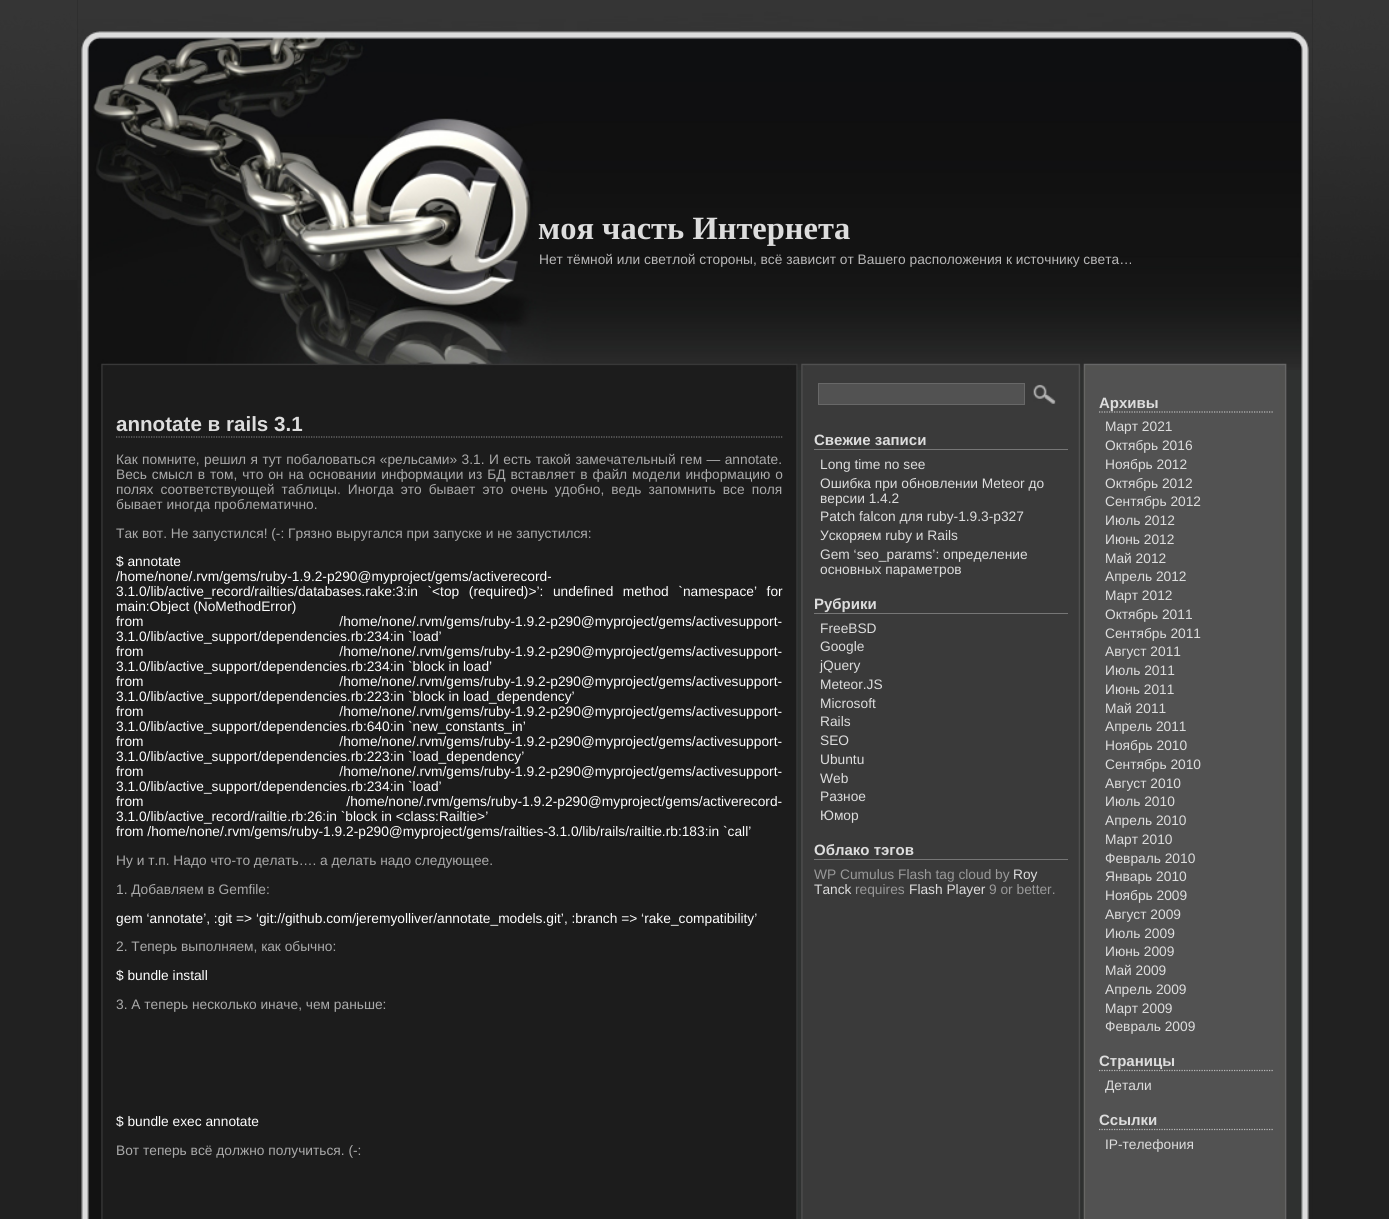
import math
import cairo

surface = cairo.ImageSurface(cairo.FORMAT_RGB24, 1389, 1219)
c = cairo.Context(surface)
options = cairo.FontOptions()
options.set_hint_metrics(cairo.HINT_METRICS_OFF)
options.set_hint_style(cairo.HINT_STYLE_NONE)
c.set_font_options(options)
c.set_miter_limit(4)
def C(code):
 c.set_source_rgb(*(v / 255 for v in bytes.fromhex(code[-6:])))
def F(family, size, italic, bold):
 c.select_font_face(family, cairo.FONT_SLANT_ITALIC if italic else cairo.FONT_SLANT_NORMAL, cairo.FONT_WEIGHT_BOLD if bold else cairo.FONT_WEIGHT_NORMAL)
 c.set_font_size(size)
def T(x, y, s):
 c.move_to(x, y)
 c.show_text(s)
def L(x, y, s, letter, word):
 c.move_to(x, y)
 for ch in s:
  c.show_text(ch)
  c.rel_move_to(letter + word * (ch == ' '), 0)
def R(x, y, w, h):
 c.rectangle(x, y, w, h)
 c.fill()
def I(path, x, y, w, h):
 c.save()
 c.set_source_surface(cairo.ImageSurface.create_from_png(path), x, y)
 c.rectangle(x, y, w, h)
 c.fill()
 c.restore()
C('212121')
c.paint()
I('1.png',0,0,1389,280)
I('2.png',77,0,1236,1219)
I('3.png',77,0,1236,370)
F('Liberation Serif',32.5,0,1)
C('dddddd')
T(538,239,'моя часть Интернета')
F('Liberation Sans',13.75,0,0)
C('b8b8b8')
T(539,264,'Нет тёмной или светлой стороны, всё зависит от Вашего расположения к источнику света…')
c.new_path()
c.move_to(116,437)
c.line_to(782.5,437)
C('767676')
c.set_line_width(1.2)
c.set_dash([1.25,1.25])
c.stroke()
F('Liberation Sans',20.6,0,1)
C('dddddd')
T(116,431,'annotate в rails 3.1')
F('Liberation Sans',13.75,0,0)
C('aaaaaa')
L(116,464,'Как помните, решил я тут побаловаться «рельсами» 3.1. И есть такой замечательный гем — annotate.',0,.6)
L(116,479,'Весь смысл в том, что он на основании информации из БД вставляет в файл модели информацию о',0,1.1)
L(116,494,'полях соответствующей таблицы. Иногда это бывает это очень удобно, ведь запомнить все поля',0,3.25)
T(116,509,'бывает иногда проблематично.')
T(116,538,'Так вот. Не запустился! (-: Грязно выругался при запуске и не запустился:')
C('ffffff')
T(116,566,'$ annotate')
T(116,581,'/home/none/.rvm/gems/ruby-1.9.2-p290@myproject/gems/activerecord-')
L(116,596,'3.1.0/lib/active_record/railties/databases.rake:3:in `<top (required)>’: undefined method `namespace’ for',0,5.75)
T(116,611,'main:Object (NoMethodError)')
L(116,626,'from /home/none/.rvm/gems/ruby-1.9.2-p290@myproject/gems/activesupport-',0,192)
T(116,641,'3.1.0/lib/active_support/dependencies.rb:234:in `load’')
L(116,656,'from /home/none/.rvm/gems/ruby-1.9.2-p290@myproject/gems/activesupport-',0,192)
T(116,671,'3.1.0/lib/active_support/dependencies.rb:234:in `block in load’')
L(116,686,'from /home/none/.rvm/gems/ruby-1.9.2-p290@myproject/gems/activesupport-',0,192)
T(116,701,'3.1.0/lib/active_support/dependencies.rb:223:in `block in load_dependency’')
L(116,716,'from /home/none/.rvm/gems/ruby-1.9.2-p290@myproject/gems/activesupport-',0,192)
T(116,731,'3.1.0/lib/active_support/dependencies.rb:640:in `new_constants_in’')
L(116,746,'from /home/none/.rvm/gems/ruby-1.9.2-p290@myproject/gems/activesupport-',0,192)
T(116,761,'3.1.0/lib/active_support/dependencies.rb:223:in `load_dependency’')
L(116,776,'from /home/none/.rvm/gems/ruby-1.9.2-p290@myproject/gems/activesupport-',0,192)
T(116,791,'3.1.0/lib/active_support/dependencies.rb:234:in `load’')
L(116,806,'from /home/none/.rvm/gems/ruby-1.9.2-p290@myproject/gems/activerecord-',0,199)
T(116,821,'3.1.0/lib/active_record/railtie.rb:26:in `block in <class:Railtie>’')
T(116,836,'from /home/none/.rvm/gems/ruby-1.9.2-p290@myproject/gems/railties-3.1.0/lib/rails/railtie.rb:183:in `call’')
C('aaaaaa')
T(116,865,'Ну и т.п. Надо что-то делать…. а делать надо следующее.')
T(116,894,'1. Добавляем в Gemfile:')
C('ffffff')
T(116,923,'gem ‘annotate’, :git => ‘git://github.com/jeremyolliver/annotate_models.git’, :branch => ‘rake_compatibility’')
C('aaaaaa')
T(116,951,'2. Теперь выполняем, как обычно:')
C('ffffff')
T(116,980,'$ bundle install')
C('aaaaaa')
T(116,1009,'3. А теперь несколько иначе, чем раньше:')
C('ffffff')
T(116,1126,'$ bundle exec annotate')
C('aaaaaa')
T(116,1155,'Вот теперь всё должно получиться. (-:')
C('525252')
c.rectangle(818.5,383.5,206,21)
c.fill_preserve()
C('686868')
c.set_line_width(1)
c.set_dash([])
c.stroke()
I('4.png',1033,384,23,20)
C('767676')
R(814,449,254,1)
F('Liberation Sans',15,0,1)
C('dddddd')
T(814,445,'Свежие записи')
F('Liberation Sans',13.75,0,0)
T(820,469,'Long time no see')
T(820,488,'Ошибка при обновлении Meteor до')
T(820,503,'версии 1.4.2')
T(820,521,'Patch falcon для ruby-1.9.3-p327')
T(820,540,'Ускоряем ruby и Rails')
T(820,559,'Gem ‘seo_params’: определение')
T(820,574,'основных параметров')
C('767676')
R(814,613,254,1)
F('Liberation Sans',15,0,1)
C('dddddd')
T(814,609,'Рубрики')
F('Liberation Sans',13.75,0,0)
T(820,633,'FreeBSD')
T(820,651,'Google')
T(820,670,'jQuery')
T(820,689,'Meteor.JS')
T(820,708,'Microsoft')
T(820,726,'Rails')
T(820,745,'SEO')
T(820,764,'Ubuntu')
T(820,783,'Web')
T(820,801,'Разное')
T(820,820,'Юмор')
C('767676')
R(814,859,254,1)
F('Liberation Sans',15,0,1)
C('dddddd')
T(814,855,'Облако тэгов')
F('Liberation Sans',13.75,0,0)
C('999999')
T(814,879,'WP Cumulus Flash tag cloud by')
C('dddddd')
T(1013,879,'Roy')
T(814,894,'Tanck')
C('999999')
T(855,894,'requires')
C('dddddd')
T(909,894,'Flash Player')
C('999999')
T(989,894,'9 or better.')
c.new_path()
c.move_to(1099,412)
c.line_to(1274,412)
C('bbbbbb')
c.set_line_width(1.2)
c.set_dash([1.25,1.25])
c.stroke()
F('Liberation Sans',15,0,1)
C('dddddd')
T(1099,408,'Архивы')
F('Liberation Sans',13.75,0,0)
T(1105,431,'Март 2021')
T(1105,450,'Октябрь 2016')
T(1105,469,'Ноябрь 2012')
T(1105,488,'Октябрь 2012')
T(1105,506,'Сентябрь 2012')
T(1105,525,'Июль 2012')
T(1105,544,'Июнь 2012')
T(1105,563,'Май 2012')
T(1105,581,'Апрель 2012')
T(1105,600,'Март 2012')
T(1105,619,'Октябрь 2011')
T(1105,638,'Сентябрь 2011')
T(1105,656,'Август 2011')
T(1105,675,'Июль 2011')
T(1105,694,'Июнь 2011')
T(1105,713,'Май 2011')
T(1105,731,'Апрель 2011')
T(1105,750,'Ноябрь 2010')
T(1105,769,'Сентябрь 2010')
T(1105,788,'Август 2010')
T(1105,806,'Июль 2010')
T(1105,825,'Апрель 2010')
T(1105,844,'Март 2010')
T(1105,863,'Февраль 2010')
T(1105,881,'Январь 2010')
T(1105,900,'Ноябрь 2009')
T(1105,919,'Август 2009')
T(1105,938,'Июль 2009')
T(1105,956,'Июнь 2009')
T(1105,975,'Май 2009')
T(1105,994,'Апрель 2009')
T(1105,1013,'Март 2009')
T(1105,1031,'Февраль 2009')
c.new_path()
c.move_to(1099,1070.5)
c.line_to(1274,1070.5)
C('bbbbbb')
c.stroke()
F('Liberation Sans',15,0,1)
C('dddddd')
T(1099,1066,'Страницы')
F('Liberation Sans',13.75,0,0)
T(1105,1090,'Детали')
c.new_path()
c.move_to(1099,1129.5)
c.line_to(1274,1129.5)
C('bbbbbb')
c.stroke()
F('Liberation Sans',15,0,1)
C('dddddd')
T(1099,1125,'Ссылки')
F('Liberation Sans',13.75,0,0)
T(1105,1149,'IP-телефония')
surface.write_to_png('o.png')
